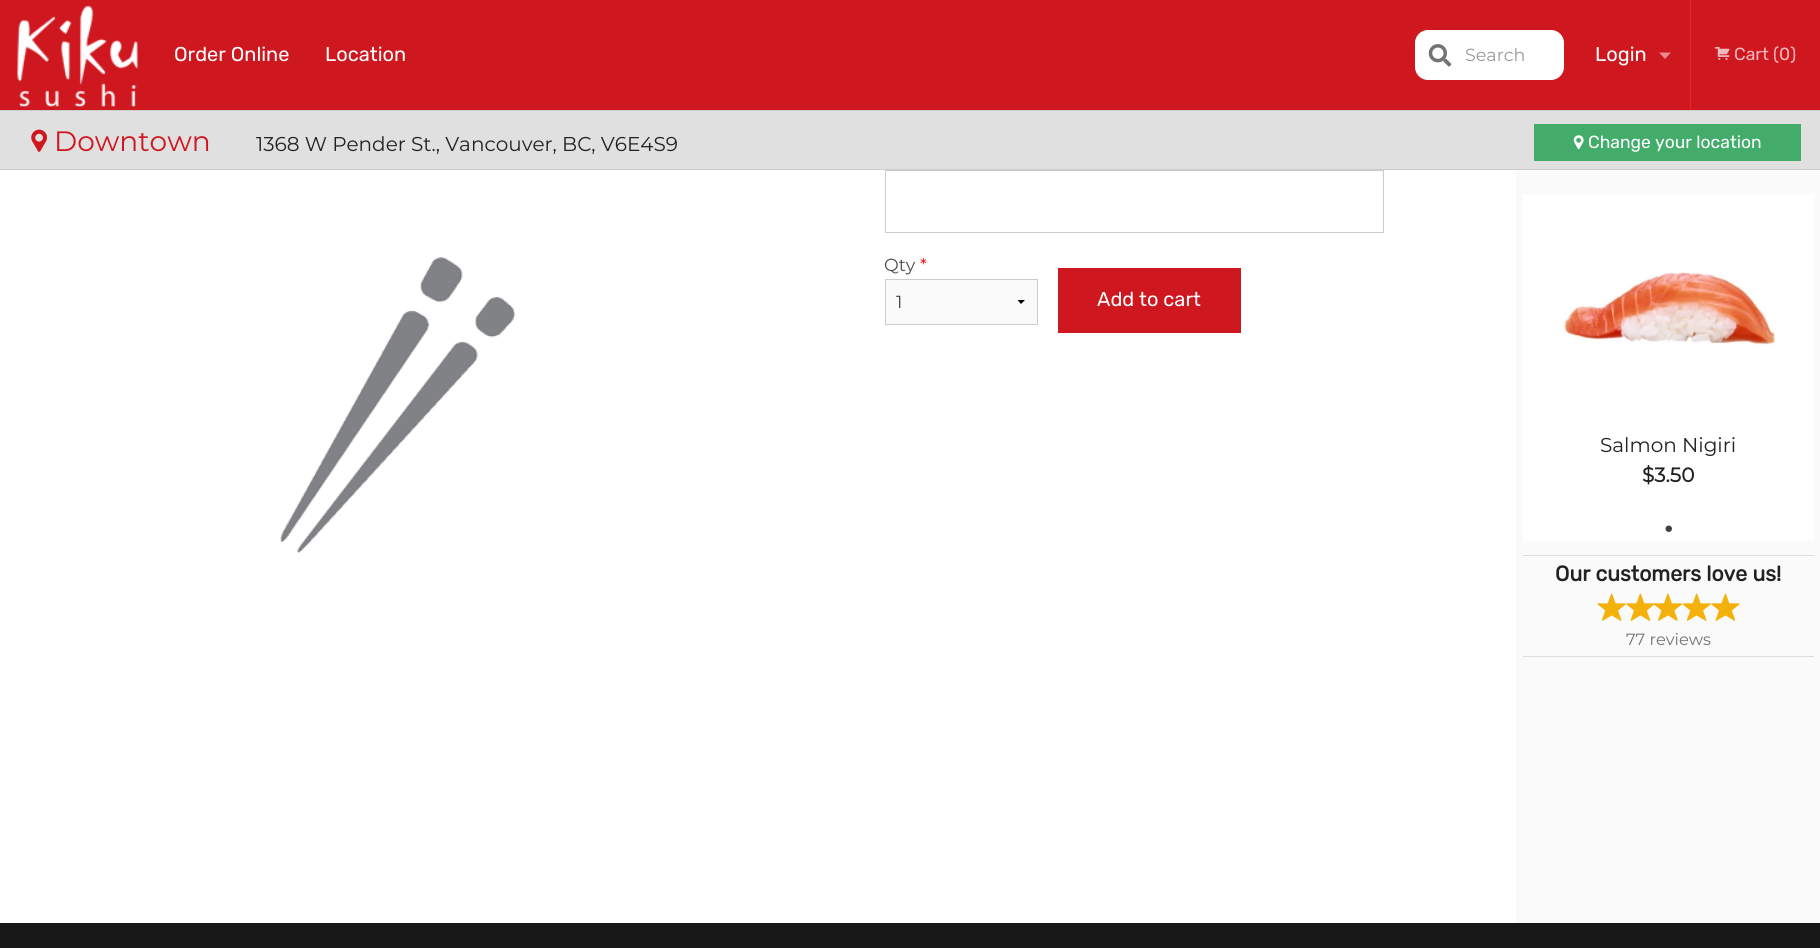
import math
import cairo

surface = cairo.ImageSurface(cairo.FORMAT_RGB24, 1820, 948)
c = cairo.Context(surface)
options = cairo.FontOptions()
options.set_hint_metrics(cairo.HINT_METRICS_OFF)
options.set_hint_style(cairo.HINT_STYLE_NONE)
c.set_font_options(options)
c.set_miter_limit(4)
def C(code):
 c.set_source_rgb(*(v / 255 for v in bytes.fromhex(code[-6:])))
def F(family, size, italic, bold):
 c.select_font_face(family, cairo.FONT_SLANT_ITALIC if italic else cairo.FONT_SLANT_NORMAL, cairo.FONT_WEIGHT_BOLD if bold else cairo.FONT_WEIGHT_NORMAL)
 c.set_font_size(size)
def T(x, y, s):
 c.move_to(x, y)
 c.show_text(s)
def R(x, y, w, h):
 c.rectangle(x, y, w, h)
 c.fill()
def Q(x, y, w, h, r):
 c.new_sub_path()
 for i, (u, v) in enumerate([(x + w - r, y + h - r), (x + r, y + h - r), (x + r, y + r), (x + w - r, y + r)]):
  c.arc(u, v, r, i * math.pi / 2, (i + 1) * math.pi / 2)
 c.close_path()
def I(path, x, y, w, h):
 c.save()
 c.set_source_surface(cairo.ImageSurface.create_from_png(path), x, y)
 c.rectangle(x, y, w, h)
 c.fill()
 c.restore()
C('ffffff')
c.paint()
C('cf171f')
R(0,0,1820,110)
I('1.png',17,6,121,101)
F('Rubik Light',20,0,0)
C('ffffff')
T(174,61,'Order Online')
T(325,61,'Location')
Q(1415.5,30.5,148,49,12.5)
c.fill_preserve()
c.set_line_width(1)
c.stroke()
I('2.png',1428,44,24,23)
F('Montserrat Thin',17.5,0,0)
C('999999')
T(1465,61,'Search')
F('Rubik Light',20,0,0)
C('ffffff')
T(1595,61,'Login')
C('e78b8f')
c.new_path()
c.move_to(1659,52.5)
c.line_to(1671,52.5)
c.line_to(1665,59)
c.close_path()
c.fill()
C('e7242c')
R(1690,0,1,110)
I('3.png',1715,47,15,13)
F('Rubik Light',17.5,0,0)
C('f1b9bc')
T(1734,60,'Cart (0)')
C('e0e0e0')
R(0,111,1820,58)
C('cccccc')
R(0,110,1820,1)
R(0,169,1820,1)
I('4.png',31,129,17,23)
F('Montserrat Thin',28,0,0)
C('cf171f')
T(54,151,'Downtown')
F('Montserrat Thin',20,0,0)
C('222222')
T(256,151,'1368 W Pender St., Vancouver, BC, V6E4S9')
C('43ac6a')
R(1534,124,267,37)
I('5.png',1573,135,11,15)
F('Rubik Light',17.5,0,0)
C('ffffff')
T(1588,148,'Change your location')
I('6.png',280,257,236,296)
c.rectangle(885.5,170.5,498,62)
C('cccccc')
c.stroke()
F('Montserrat Thin',17.5,0,0)
C('4d4d4d')
T(884,271,'Qty')
C('ff0000')
T(920,271,'*')
C('fafafa')
R(886,280,151,44)
C('000000')
c.new_path()
c.move_to(1025,300)
c.line_to(1021,304)
c.line_to(1017.5,300)
c.close_path()
c.fill()
c.rectangle(885.5,279.5,152,45)
C('cccccc')
c.stroke()
C('3f3f3f')
T(896,308,'1')
C('cf171f')
R(1058,268,183,65)
F('Rubik Light',20,0,0)
C('ffffff')
T(1097,306,'Add to cart')
C('fafafa')
R(1516,170,304,753)
C('ffffff')
R(1523,194,291,347)
I('7.png',1563,272,213,74)
F('Montserrat Thin',20,0,0)
C('222222')
T(1600,452,'Salmon Nigiri')
F('Montserrat',20,0,1)
T(1642,482,'$3.50')
I('8.png',1665,525,7,7)
C('dddddd')
R(1523,555,291,1)
F('Rubik',21.25,0,1)
C('222222')
T(1555,581,'Our customers love us!')
I('9.png',1597,593,29,28)
I('10.png',1626,593,29,28)
I('11.png',1653,593,29,28)
I('9.png',1682,593,29,28)
I('10.png',1711,593,29,28)
F('Montserrat Thin',16.25,0,0)
C('737373')
T(1626,645,'77 reviews')
C('dddddd')
R(1523,656,291,1)
C('171717')
R(0,923,1820,25)
surface.write_to_png('o.png')
